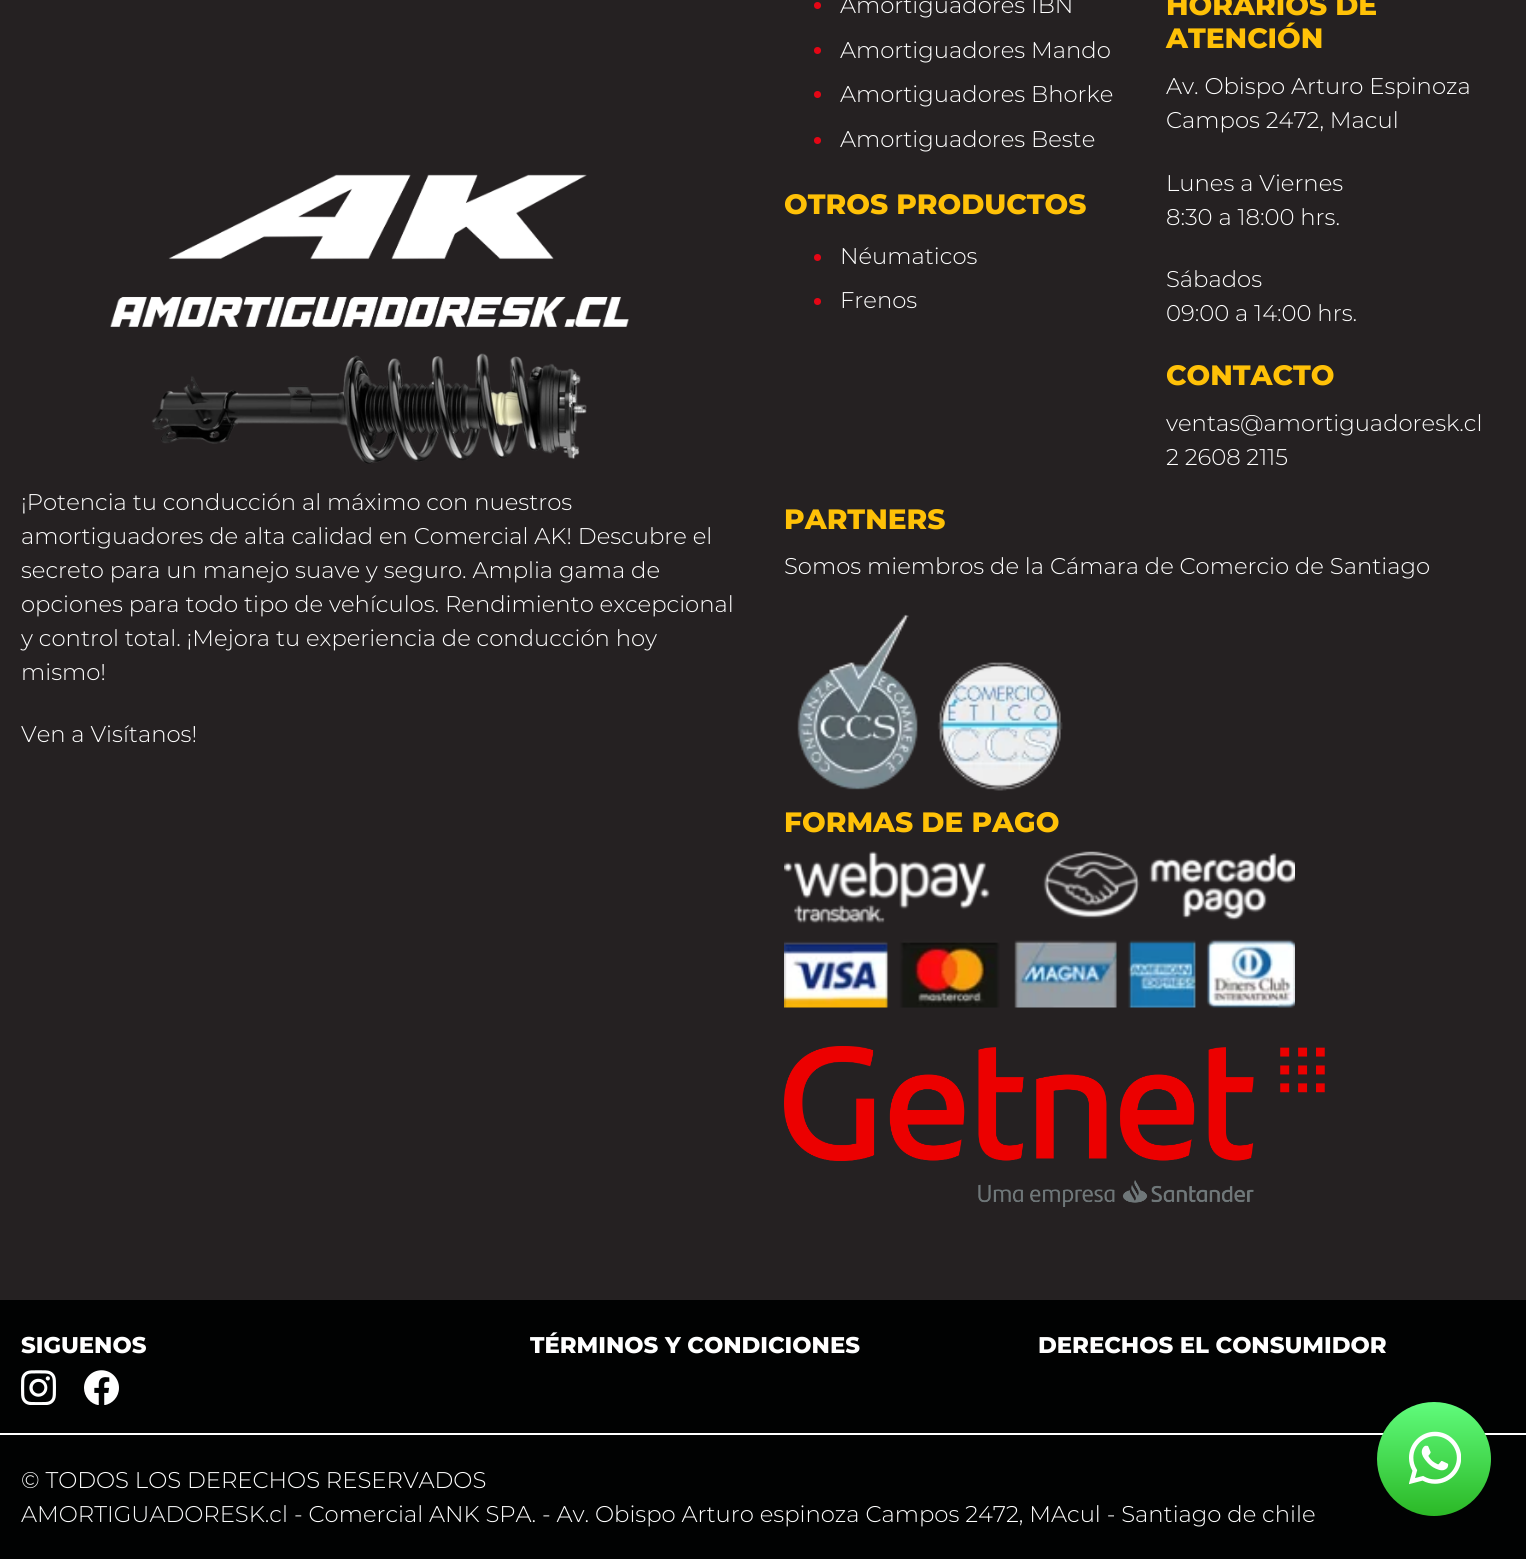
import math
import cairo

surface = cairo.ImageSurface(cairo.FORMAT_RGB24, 1526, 1559)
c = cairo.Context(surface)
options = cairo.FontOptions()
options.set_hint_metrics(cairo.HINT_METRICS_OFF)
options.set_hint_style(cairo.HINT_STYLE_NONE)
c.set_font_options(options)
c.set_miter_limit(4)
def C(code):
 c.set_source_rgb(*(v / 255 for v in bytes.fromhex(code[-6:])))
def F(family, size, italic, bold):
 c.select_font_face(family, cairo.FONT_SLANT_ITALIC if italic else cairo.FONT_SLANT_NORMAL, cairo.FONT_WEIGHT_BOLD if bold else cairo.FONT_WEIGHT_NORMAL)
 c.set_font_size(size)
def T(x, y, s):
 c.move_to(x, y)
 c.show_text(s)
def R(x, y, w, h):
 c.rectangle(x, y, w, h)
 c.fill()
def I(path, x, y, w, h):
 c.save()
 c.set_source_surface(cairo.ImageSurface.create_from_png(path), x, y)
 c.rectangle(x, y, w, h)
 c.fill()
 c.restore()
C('252122')
c.paint()
I('1.png',110,174,519,290)
F('Montserrat Light',22.75,0,0)
C('ffffff')
T(21,510,'¡Potencia tu conducción al máximo con nuestros')
T(21,544,'amortiguadores de alta calidad en Comercial AK! Descubre el')
T(21,578,'secreto para un manejo suave y seguro. Amplia gama de')
T(21,612,'opciones para todo tipo de vehículos. Rendimiento excepcional')
T(21,646,'y control total. ¡Mejora tu experiencia de conducción hoy')
T(21,680,'mismo!')
T(21,742,'Ven a Visítanos!')
C('e40615')
c.new_path()
c.arc(817.5,5.5,3.5,0,2 * math.pi)
c.fill()
C('ffffff')
T(840,13,'Amortiguadores IBN')
C('e40615')
c.new_path()
c.arc(817.5,50.5,3.5,0,2 * math.pi)
c.fill()
C('ffffff')
T(840,58,'Amortiguadores Mando')
C('e40615')
c.new_path()
c.arc(817.5,94.5,3.5,0,2 * math.pi)
c.fill()
C('ffffff')
T(840,102,'Amortiguadores Bhorke')
C('e40615')
c.new_path()
c.arc(817.5,140.5,3.5,0,2 * math.pi)
c.fill()
C('ffffff')
T(840,147,'Amortiguadores Beste')
F('Montserrat ExtraBold',28,0,0)
C('ffc107')
T(784,214,'OTROS PRODUCTOS')
C('e40615')
c.new_path()
c.arc(817.5,257.5,3.5,0,2 * math.pi)
c.fill()
F('Montserrat Light',22.75,0,0)
C('ffffff')
T(840,264,'Néumaticos')
C('e40615')
c.new_path()
c.arc(817.5,301.5,3.5,0,2 * math.pi)
c.fill()
C('ffffff')
T(840,308,'Frenos')
F('Montserrat ExtraBold',28,0,0)
C('ffc107')
T(1166,15,'HORARIOS DE')
T(1166,48,'ATENCIÓN')
F('Montserrat Light',22.75,0,0)
C('ffffff')
T(1166,94,'Av. Obispo Arturo Espinoza')
T(1166,128,'Campos 2472, Macul')
T(1166,191,'Lunes a Viernes')
T(1166,225,'8:30 a 18:00 hrs.')
T(1166,287,'Sábados')
T(1166,321,'09:00 a 14:00 hrs.')
F('Montserrat ExtraBold',28,0,0)
C('ffc107')
T(1166,385,'CONTACTO')
F('Montserrat Light',22.75,0,0)
C('ffffff')
T(1166,431,'ventas@amortiguadoresk.cl')
T(1166,465,'2 2608 2115')
F('Montserrat ExtraBold',28,0,0)
C('ffc107')
T(784,529,'PARTNERS')
F('Montserrat Light',22.75,0,0)
C('ffffff')
T(784,574,'Somos miembros de la Cámara de Comercio de Santiago')
I('2.png',797,614,121,176)
I('3.png',937,662,126,129)
F('Montserrat ExtraBold',28,0,0)
C('ffc107')
T(784,832,'FORMAS DE PAGO')
I('4.png',784,851,511,157)
I('5.png',784,1046,541,161)
C('010202')
R(0,1300,1526,259)
F('Montserrat ExtraBold',22.75,0,0)
C('ffffff')
T(21,1353,'SIGUENOS')
I('6.png',21,1370,35,35)
I('7.png',84,1370,35,35)
T(530,1353,'TÉRMINOS Y CONDICIONES')
T(1038,1353,'DERECHOS EL CONSUMIDOR')
R(0,1433,1526,2)
F('Montserrat Light',22.75,0,0)
T(21,1488,'© TODOS LOS DERECHOS RESERVADOS')
C('f8f9fa')
T(21,1522,'AMORTIGUADORESK.cl')
C('ffffff')
T(294,1522,'- Comercial ANK SPA. - Av. Obispo Arturo espinoza Campos 2472, MAcul - Santiago de chile')
gradient = cairo.LinearGradient(1434,1402,1434,1516)
gradient.add_color_stop_rgba(0,0.376,0.988,0.486,1)
gradient.add_color_stop_rgba(1,0.169,0.722,0.149,1)
c.set_source(gradient)
c.new_path()
c.arc(1434,1459,57,0,2 * math.pi)
c.fill()
I('8.png',1409,1431,52,54)
surface.write_to_png('o.png')
